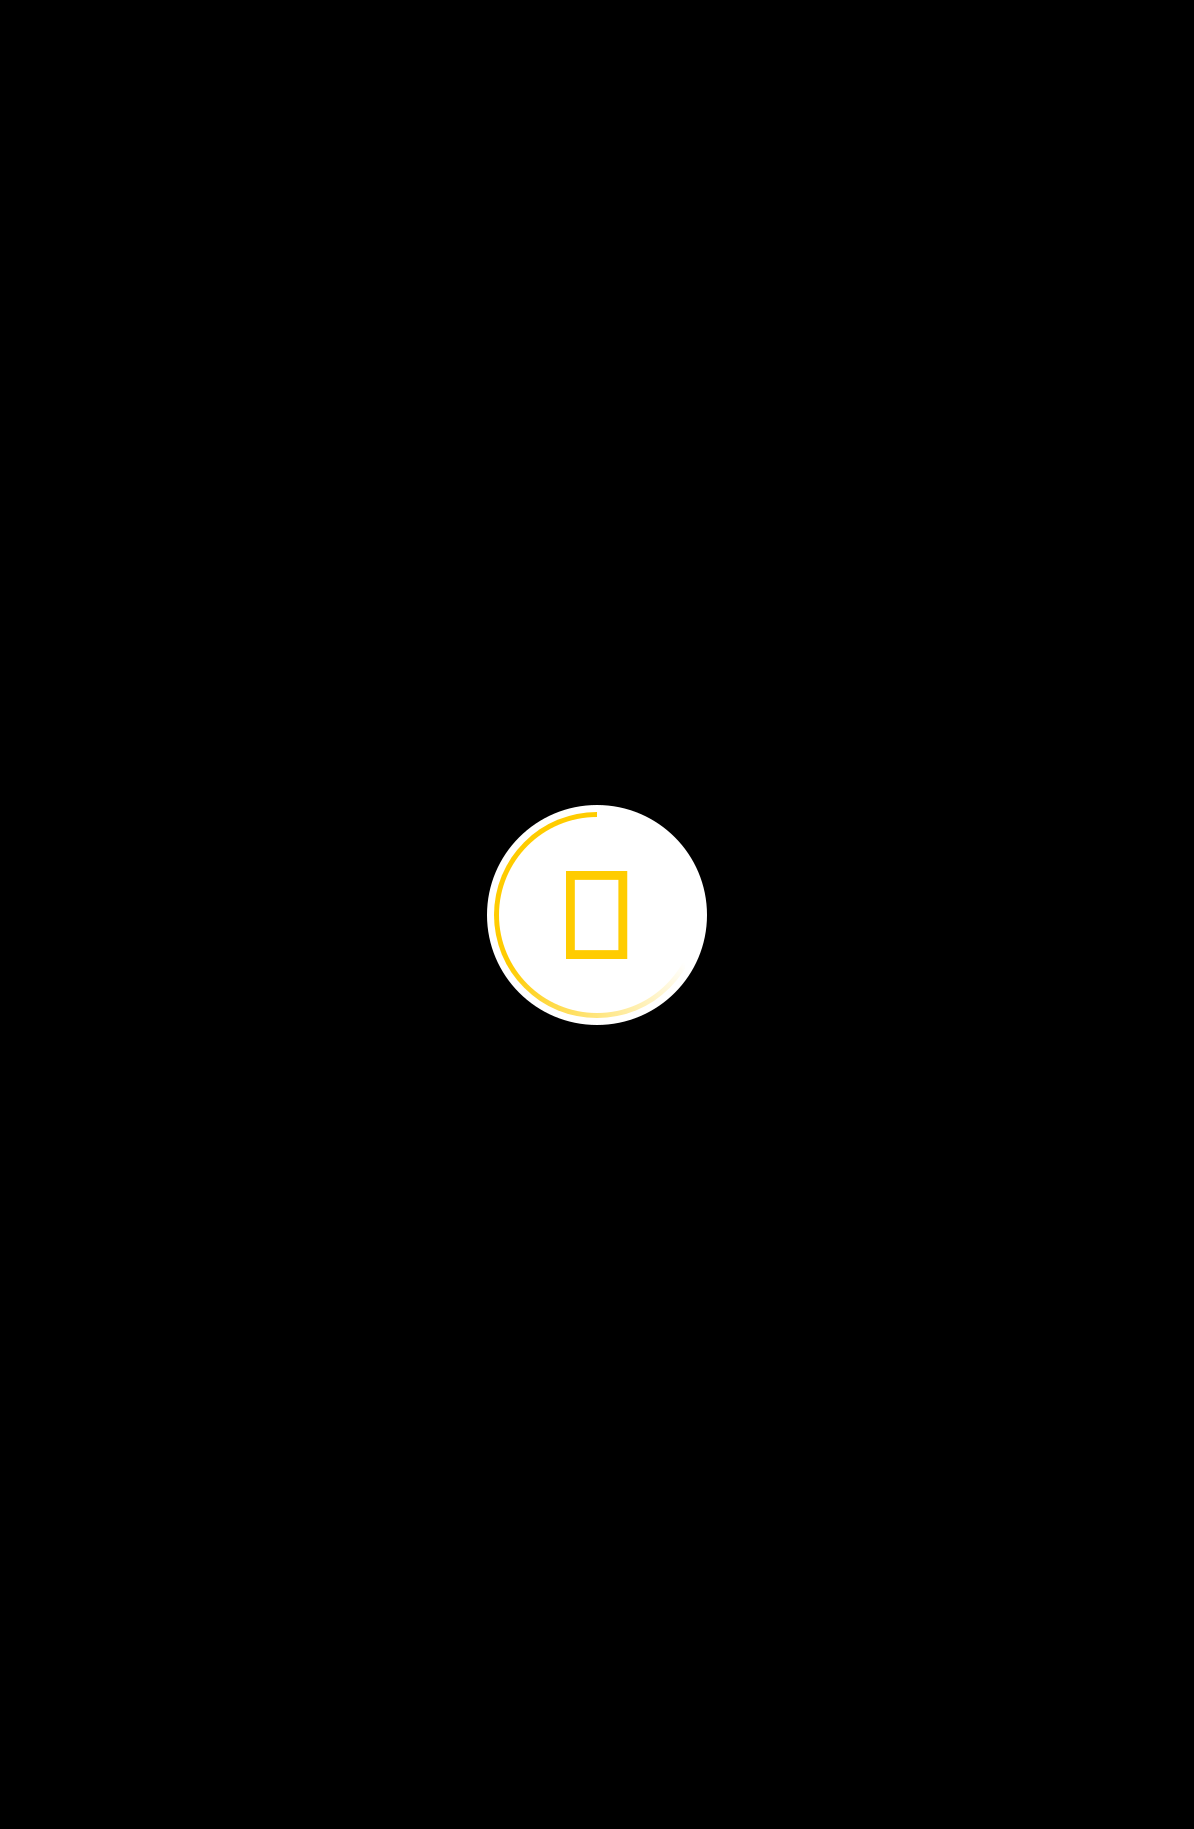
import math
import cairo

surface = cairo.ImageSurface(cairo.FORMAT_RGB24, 1194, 1829)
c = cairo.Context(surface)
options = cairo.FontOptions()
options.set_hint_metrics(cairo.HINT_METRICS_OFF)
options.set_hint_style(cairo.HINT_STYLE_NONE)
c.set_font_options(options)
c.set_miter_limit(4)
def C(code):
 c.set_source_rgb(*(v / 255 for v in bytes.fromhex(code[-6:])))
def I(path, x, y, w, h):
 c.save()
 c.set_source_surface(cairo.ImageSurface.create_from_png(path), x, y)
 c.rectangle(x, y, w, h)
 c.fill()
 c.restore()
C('000000')
c.paint()
C('ffffff')
c.arc(597,915,110,0,2 * math.pi)
c.fill()
I('1.png',494,812,191,206)
c.arc(597,915,98,0,2 * math.pi)
c.fill()
I('2.png',566,871,62,88)
surface.write_to_png('o.png')
